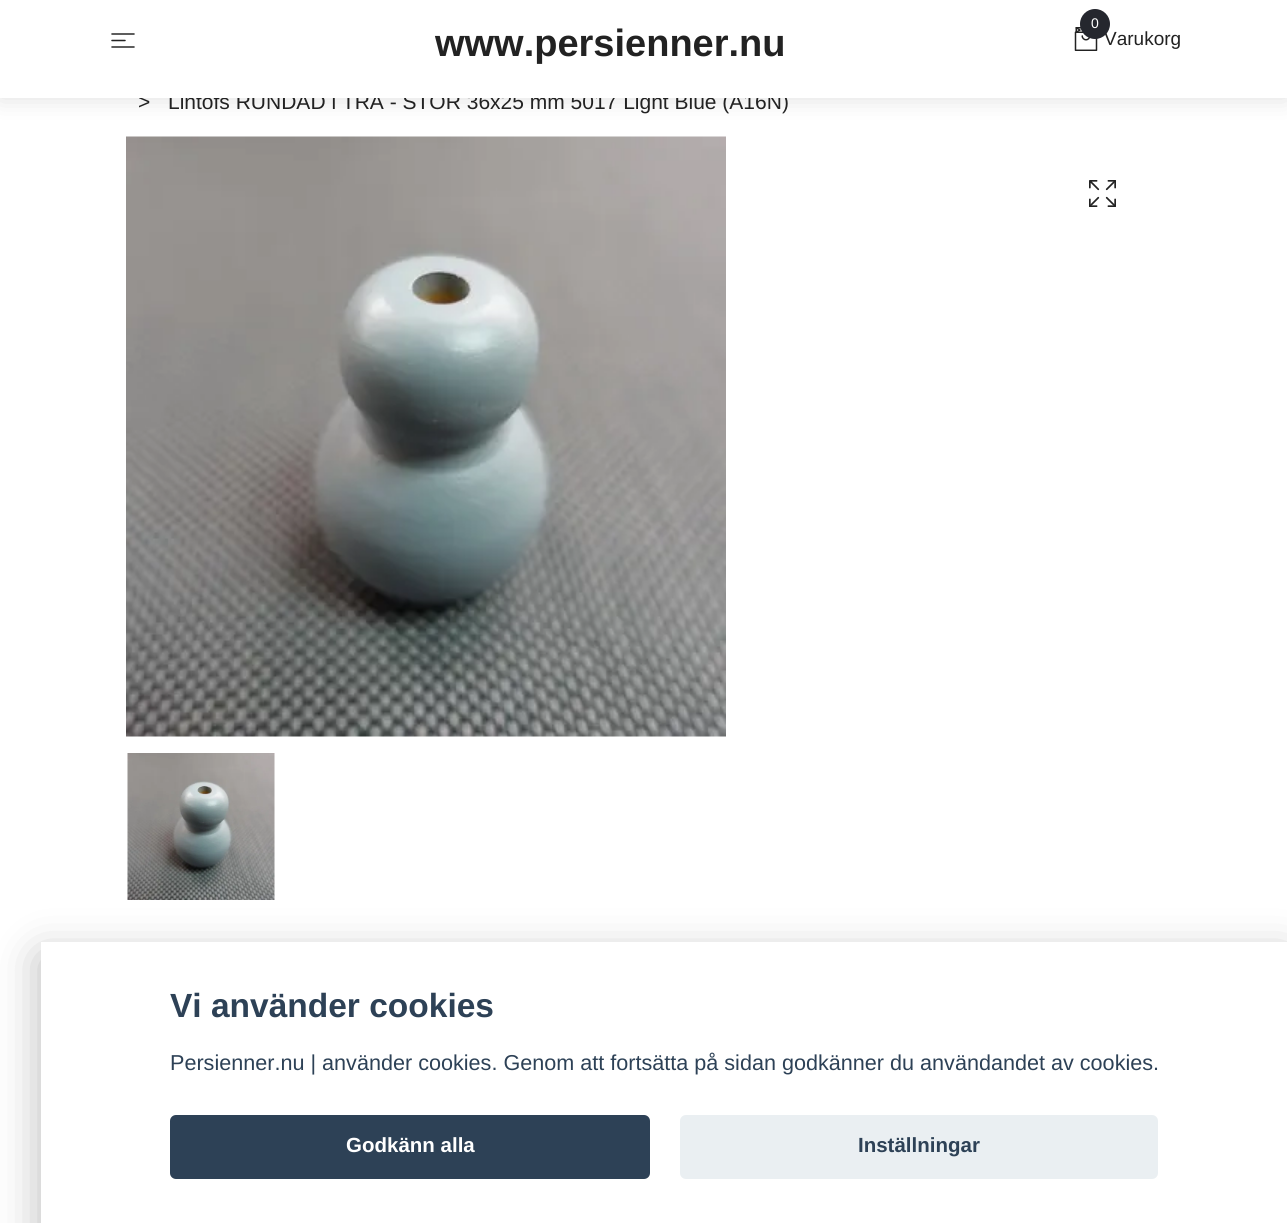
import math
import cairo

surface = cairo.ImageSurface(cairo.FORMAT_RGB24, 1287, 1223)
c = cairo.Context(surface)
options = cairo.FontOptions()
options.set_hint_metrics(cairo.HINT_METRICS_OFF)
options.set_hint_style(cairo.HINT_STYLE_NONE)
c.set_font_options(options)
c.set_miter_limit(4)
def C(code):
 c.set_source_rgb(*(v / 255 for v in bytes.fromhex(code[-6:])))
def F(family, size, italic, bold):
 c.select_font_face(family, cairo.FONT_SLANT_ITALIC if italic else cairo.FONT_SLANT_NORMAL, cairo.FONT_WEIGHT_BOLD if bold else cairo.FONT_WEIGHT_NORMAL)
 c.set_font_size(size)
def T(x, y, s):
 c.move_to(x, y)
 c.show_text(s)
def R(x, y, w, h):
 c.rectangle(x, y, w, h)
 c.fill()
def Q(x, y, w, h, r):
 c.new_sub_path()
 for i, (u, v) in enumerate([(x + w - r, y + h - r), (x + r, y + h - r), (x + r, y + r), (x + w - r, y + r)]):
  c.arc(u, v, r, i * math.pi / 2, (i + 1) * math.pi / 2)
 c.close_path()
def S(x, y, w, h, r, blur, alpha):
 c.push_group_with_content(cairo.CONTENT_ALPHA)
 c.set_operator(cairo.OPERATOR_SOURCE)
 for i in range(15, -16, -2):
  e = blur * i / 6
  if min(w, h) + 2 * e > 0:
   c.set_source_rgba(0, 0, 0, alpha * math.erfc((i - 1) / 8.5) / 2)
   Q(x - e, y - e, w + 2 * e, h + 2 * e, max(0, min(r + e + blur * .6, min(w, h) / 2 + e)))
   c.fill()
 c.mask(c.pop_group())
def I(path, x, y, w, h):
 c.save()
 c.set_source_surface(cairo.ImageSurface.create_from_png(path), x, y)
 c.rectangle(x, y, w, h)
 c.fill()
 c.restore()
C('ffffff')
c.paint()
C('222222')
S(0,0,1287,98,0,12,.15)
F('Liberation Sans',21,0,0)
C('222222')
T(138,109,'>')
T(168,109,'Lintofs RUNDAD i TRÄ - STOR 36x25 mm 5017 Light Blue (A16N)')
C('ffffff')
R(0,0,1287,98)
c.new_path()
c.move_to(112,34)
c.line_to(134,34)
c.move_to(112,40.5)
c.line_to(125,40.5)
c.move_to(112,47)
c.line_to(134,47)
C('222222')
c.set_line_width(1.5)
c.set_line_cap(cairo.LINE_CAP_ROUND)
c.set_line_join(cairo.LINE_JOIN_ROUND)
c.stroke()
F('Liberation Sans',38,0,1)
T(435,56,'www.persienner.nu')
I('1.png',1074,27,24,24)
F('Liberation Sans',19,0,0)
T(1104,45,'Varukorg')
C('25272e')
c.new_path()
c.arc(1095,24,15,0,2 * math.pi)
c.fill()
F('Liberation Sans',14,0,0)
C('ffffff')
T(1091,28,'0')
I('2.png',126,136,600,601)
I('3.png',1089,180,27,27)
I('4.png',127,753,148,147)
C('020203')
S(41,957,1246,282,0,22.5,.28)
C('ffffff')
R(41,942,1246,281)
F('Liberation Sans',33.5,0,1)
C('2d4156')
T(170,1017,'Vi använder cookies')
F('Liberation Sans',21.6,0,0)
T(170,1070,'Persienner.nu | använder cookies. Genom att fortsätta på sidan godkänner du användandet av cookies.')
Q(170,1115,480,64,6)
c.fill()
F('Liberation Sans',20.5,0,1)
C('ffffff')
T(346,1152,'Godkänn alla')
C('eaeff2')
Q(680,1115,478,64,6)
c.fill()
C('2d4156')
T(858,1152,'Inställningar')
surface.write_to_png('o.png')
